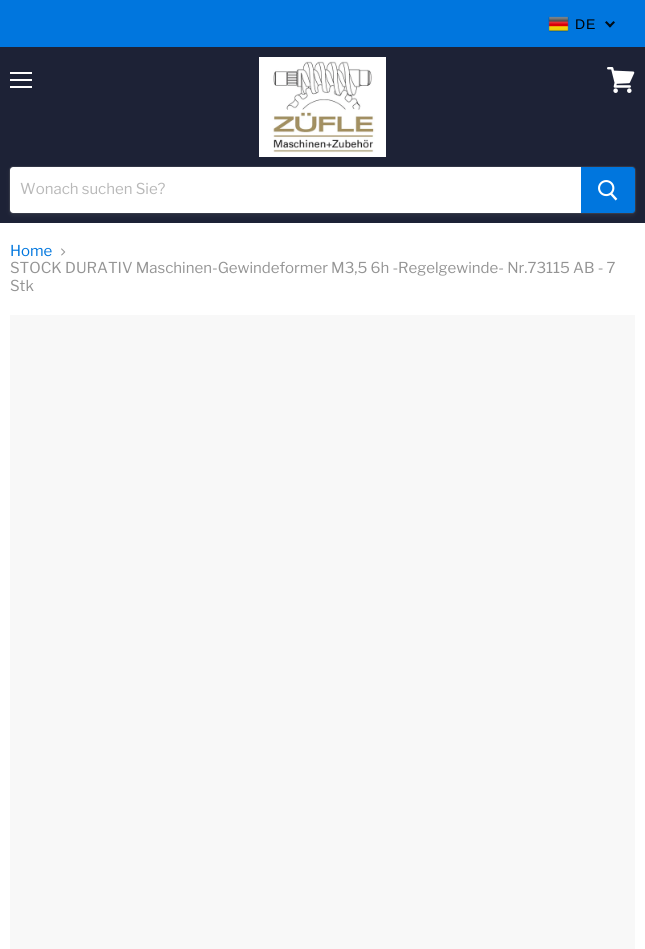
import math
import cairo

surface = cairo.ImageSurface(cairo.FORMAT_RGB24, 645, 949)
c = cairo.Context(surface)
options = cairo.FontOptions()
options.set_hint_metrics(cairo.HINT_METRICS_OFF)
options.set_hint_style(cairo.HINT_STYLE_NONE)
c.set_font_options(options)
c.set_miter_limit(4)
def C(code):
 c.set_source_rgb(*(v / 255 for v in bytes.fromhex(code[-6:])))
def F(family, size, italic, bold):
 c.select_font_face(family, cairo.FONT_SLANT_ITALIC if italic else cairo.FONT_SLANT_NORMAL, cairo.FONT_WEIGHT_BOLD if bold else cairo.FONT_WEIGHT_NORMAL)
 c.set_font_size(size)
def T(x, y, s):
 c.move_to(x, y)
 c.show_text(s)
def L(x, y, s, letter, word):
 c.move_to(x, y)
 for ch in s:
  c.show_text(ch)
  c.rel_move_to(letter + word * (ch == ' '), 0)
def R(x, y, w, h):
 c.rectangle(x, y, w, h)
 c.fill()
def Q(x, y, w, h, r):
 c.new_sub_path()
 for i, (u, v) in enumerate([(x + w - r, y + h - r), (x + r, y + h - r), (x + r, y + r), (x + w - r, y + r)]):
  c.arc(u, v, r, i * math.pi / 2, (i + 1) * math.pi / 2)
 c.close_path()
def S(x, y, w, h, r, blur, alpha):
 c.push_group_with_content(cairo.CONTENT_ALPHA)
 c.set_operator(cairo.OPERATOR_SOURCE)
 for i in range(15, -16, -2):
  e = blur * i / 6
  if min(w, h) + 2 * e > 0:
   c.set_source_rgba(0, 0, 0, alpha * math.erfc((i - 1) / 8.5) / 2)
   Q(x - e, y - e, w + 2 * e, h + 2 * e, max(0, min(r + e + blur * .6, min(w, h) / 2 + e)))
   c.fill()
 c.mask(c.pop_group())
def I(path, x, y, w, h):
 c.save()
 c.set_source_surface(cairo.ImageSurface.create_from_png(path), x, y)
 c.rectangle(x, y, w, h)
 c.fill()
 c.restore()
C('ffffff')
c.paint()
C('0076de')
R(0,0,645,47)
I('1.png',548,16,21,16)
F('Liberation Sans',14,0,0)
C('000000')
L(575,29,'DE',1,0)
C('000c16')
c.new_path()
c.move_to(613.5,21)
c.line_to(615,22.5)
c.line_to(610,27.5)
c.line_to(608.5,26)
c.close_path()
c.fill()
c.new_path()
c.move_to(606.5,21)
c.line_to(611.5,26)
c.line_to(610,27.5)
c.line_to(605,22.5)
c.close_path()
c.fill()
C('1d2236')
R(0,47,645,176)
C('ffffff')
R(10,72,22,2)
R(10,79,22,2)
R(10,86,22,2)
I('2.png',607,67,28,26)
I('3.png',259,57,127,100)
C('808080')
S(9,168,627,48,4,1.5,.11)
Q(9.5,166.5,626,47,3.5)
c.set_source_rgba(0.502,0.502,0.502,0.2)
c.set_line_width(1)
c.stroke()
C('ffffff')
c.new_path()
c.move_to(13,167)
c.line_to(581,167)
c.line_to(581,213)
c.line_to(13,213)
c.curve_to(11.5,213,10,211.5,10,210)
c.line_to(10,170)
c.curve_to(10,168.5,11.5,167,13,167)
c.close_path()
c.fill()
F('Libre Franklin',15,0,0)
C('b8b8b8')
T(20,194,'Wonach suchen Sie?')
C('0076de')
c.new_path()
c.move_to(581.5,167.5)
c.line_to(632,167.5)
c.curve_to(633.5,167.5,634.5,168.5,634.5,170)
c.line_to(634.5,210)
c.curve_to(634.5,211.5,633.5,212.5,632,212.5)
c.line_to(581.5,212.5)
c.close_path()
c.fill_preserve()
c.stroke()
I('4.png',598,180,20,21)
T(10,256,'Home')
I('5.png',61,248,5,8)
C('949494')
T(10,273,'STOCK DURATIV Maschinen-Gewindeformer M3,5 6h -Regelgewinde- Nr.73115 AB - 7')
T(10,291,'Stk')
C('f8f8f8')
R(10,315,625,634)
surface.write_to_png('o.png')
